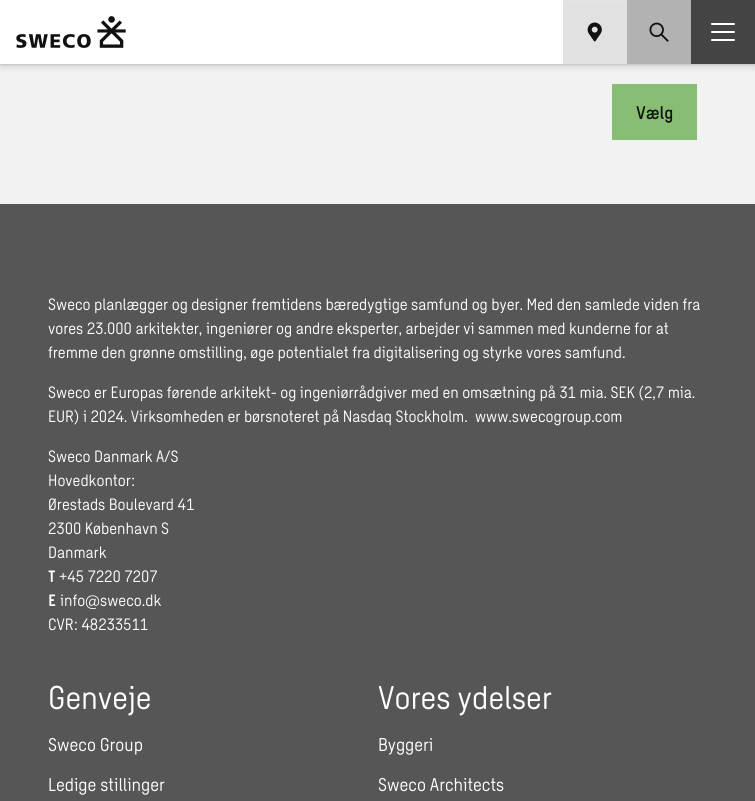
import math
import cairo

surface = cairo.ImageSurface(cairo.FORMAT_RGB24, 755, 801)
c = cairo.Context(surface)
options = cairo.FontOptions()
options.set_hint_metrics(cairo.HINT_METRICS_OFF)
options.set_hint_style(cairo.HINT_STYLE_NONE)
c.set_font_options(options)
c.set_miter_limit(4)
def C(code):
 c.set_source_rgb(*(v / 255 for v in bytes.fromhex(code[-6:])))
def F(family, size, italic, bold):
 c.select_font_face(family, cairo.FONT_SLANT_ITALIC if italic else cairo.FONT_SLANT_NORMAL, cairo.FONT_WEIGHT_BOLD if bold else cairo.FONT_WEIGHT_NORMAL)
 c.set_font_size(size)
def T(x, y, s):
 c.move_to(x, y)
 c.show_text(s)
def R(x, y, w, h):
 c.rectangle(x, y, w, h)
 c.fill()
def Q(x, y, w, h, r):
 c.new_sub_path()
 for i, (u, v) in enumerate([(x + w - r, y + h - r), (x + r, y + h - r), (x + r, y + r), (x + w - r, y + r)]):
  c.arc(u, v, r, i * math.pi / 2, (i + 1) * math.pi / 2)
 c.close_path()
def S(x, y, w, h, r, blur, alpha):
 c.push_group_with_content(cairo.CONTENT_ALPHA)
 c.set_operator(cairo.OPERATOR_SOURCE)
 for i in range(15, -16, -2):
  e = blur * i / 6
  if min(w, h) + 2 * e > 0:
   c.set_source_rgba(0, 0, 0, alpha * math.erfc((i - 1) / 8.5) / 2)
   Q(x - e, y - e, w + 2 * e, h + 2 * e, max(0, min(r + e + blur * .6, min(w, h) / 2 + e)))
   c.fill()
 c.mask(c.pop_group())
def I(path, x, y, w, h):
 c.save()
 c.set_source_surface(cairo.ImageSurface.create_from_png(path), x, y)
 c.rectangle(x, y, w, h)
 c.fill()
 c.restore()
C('f2f2f2')
c.paint()
C('000000')
S(0,3,755,64,0,3.5,.13)
S(0,1,755,64,0,1,.1)
C('ffffff')
R(0,0,563,64)
I('1.png',16,16,110,32)
C('e1e1e1')
R(563,1,64,63)
I('2.png',587,22,15,20)
C('b2b2b2')
R(627,0,64,64)
I('3.png',649,22,20,20)
C('444444')
R(691,0,64,64)
C('ffffff')
Q(711,31,24,2,1)
c.fill()
Q(711,23,24,2,1)
c.fill()
Q(711,39,24,2,1)
c.fill()
C('87be73')
R(612,84,85,56)
F('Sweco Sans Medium',18,0,0)
C('111111')
T(636,119,'Vælg')
C('575656')
R(0,204,755,597)
F('Sweco Sans',16,0,0)
C('ffffff')
T(48,310,'Sweco planlægger og designer fremtidens bæredygtige samfund og byer. Med den samlede viden fra')
T(48,334,'vores 23.000 arkitekter, ingeniører og andre eksperter, arbejder vi sammen med kunderne for at')
T(48,358,'fremme den grønne omstilling, øge potentialet fra digitalisering og styrke vores samfund.')
T(48,398,'Sweco er Europas førende arkitekt- og ingeniørrådgiver med en omsætning på 31 mia. SEK (2,7 mia.')
T(48,422,'EUR) i 2024. Virksomheden er børsnoteret på Nasdaq Stockholm.')
T(475,422,'www.swecogroup.com')
T(48,462,'Sweco Danmark A/S')
T(48,486,'Hovedkontor:')
T(48,510,'Ørestads Boulevard 41')
T(48,534,'2300 København S')
T(48,558,'Danmark')
F('Sweco Sans',16,0,1)
T(48,582,'T')
F('Sweco Sans',16,0,0)
T(59,582,'+45 7220 7207')
F('Sweco Sans',16,0,1)
T(48,606,'E')
F('Sweco Sans',16,0,0)
T(60,606,'info@sweco.dk')
T(48,630,'CVR: 48233511')
F('Sweco Sans',32,0,0)
T(48,709,'Genveje')
F('Sweco Sans',18,0,0)
T(48,751,'Sweco Group')
T(48,791,'Ledige stillinger')
F('Sweco Sans',32,0,0)
T(378,709,'Vores ydelser')
F('Sweco Sans',18,0,0)
T(378,751,'Byggeri')
T(378,791,'Sweco Architects')
surface.write_to_png('o.png')
